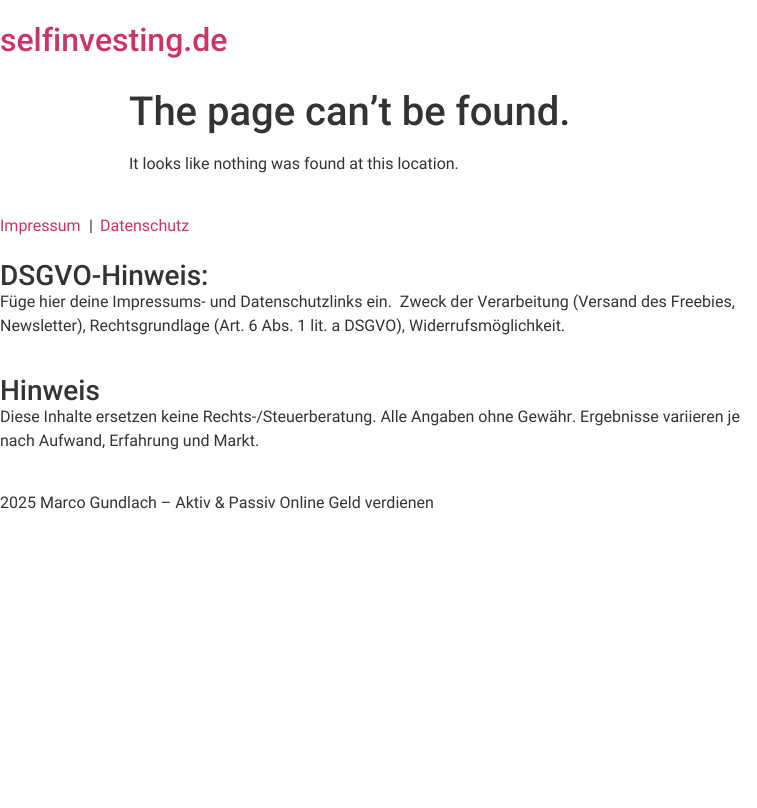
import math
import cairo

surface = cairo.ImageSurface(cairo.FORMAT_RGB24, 757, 808)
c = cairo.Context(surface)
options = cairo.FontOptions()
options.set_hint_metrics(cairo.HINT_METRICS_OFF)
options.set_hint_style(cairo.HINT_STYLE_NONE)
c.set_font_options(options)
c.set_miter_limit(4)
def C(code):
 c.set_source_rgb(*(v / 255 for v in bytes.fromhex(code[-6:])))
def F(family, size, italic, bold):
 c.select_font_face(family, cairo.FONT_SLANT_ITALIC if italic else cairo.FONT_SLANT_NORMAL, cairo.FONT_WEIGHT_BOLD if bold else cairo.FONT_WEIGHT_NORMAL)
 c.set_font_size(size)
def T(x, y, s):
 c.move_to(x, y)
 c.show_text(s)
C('ffffff')
c.paint()
F('Roboto Medium',32,0,0)
C('cc3366')
T(0,51,'selfinvesting.de')
F('Roboto Medium',40,0,0)
C('333333')
T(129,125,'The page can’t be found.')
F('Roboto',16,0,0)
T(129,169,'It looks like nothing was found at this location.')
C('cc3366')
T(0,231,'Impressum')
C('333333')
T(89,231,'|')
C('cc3366')
T(100,231,'Datenschutz')
F('Roboto Medium',28,0,0)
C('333333')
T(0,285,'DSGVO-Hinweis:')
F('Roboto',16,0,0)
T(0,307,'Füge hier deine Impressums- und Datenschutzlinks ein.  Zweck der Verarbeitung (Versand des Freebies,')
T(0,331,'Newsletter), Rechtsgrundlage (Art. 6 Abs. 1 lit. a DSGVO), Widerrufsmöglichkeit.')
F('Roboto Medium',28,0,0)
T(0,400,'Hinweis')
F('Roboto',16,0,0)
T(0,422,'Diese Inhalte ersetzen keine Rechts-/Steuerberatung. Alle Angaben ohne Gewähr. Ergebnisse variieren je')
T(0,446,'nach Aufwand, Erfahrung und Markt.')
T(0,508,'2025 Marco Gundlach – Aktiv & Passiv Online Geld verdienen')
surface.write_to_png('o.png')
